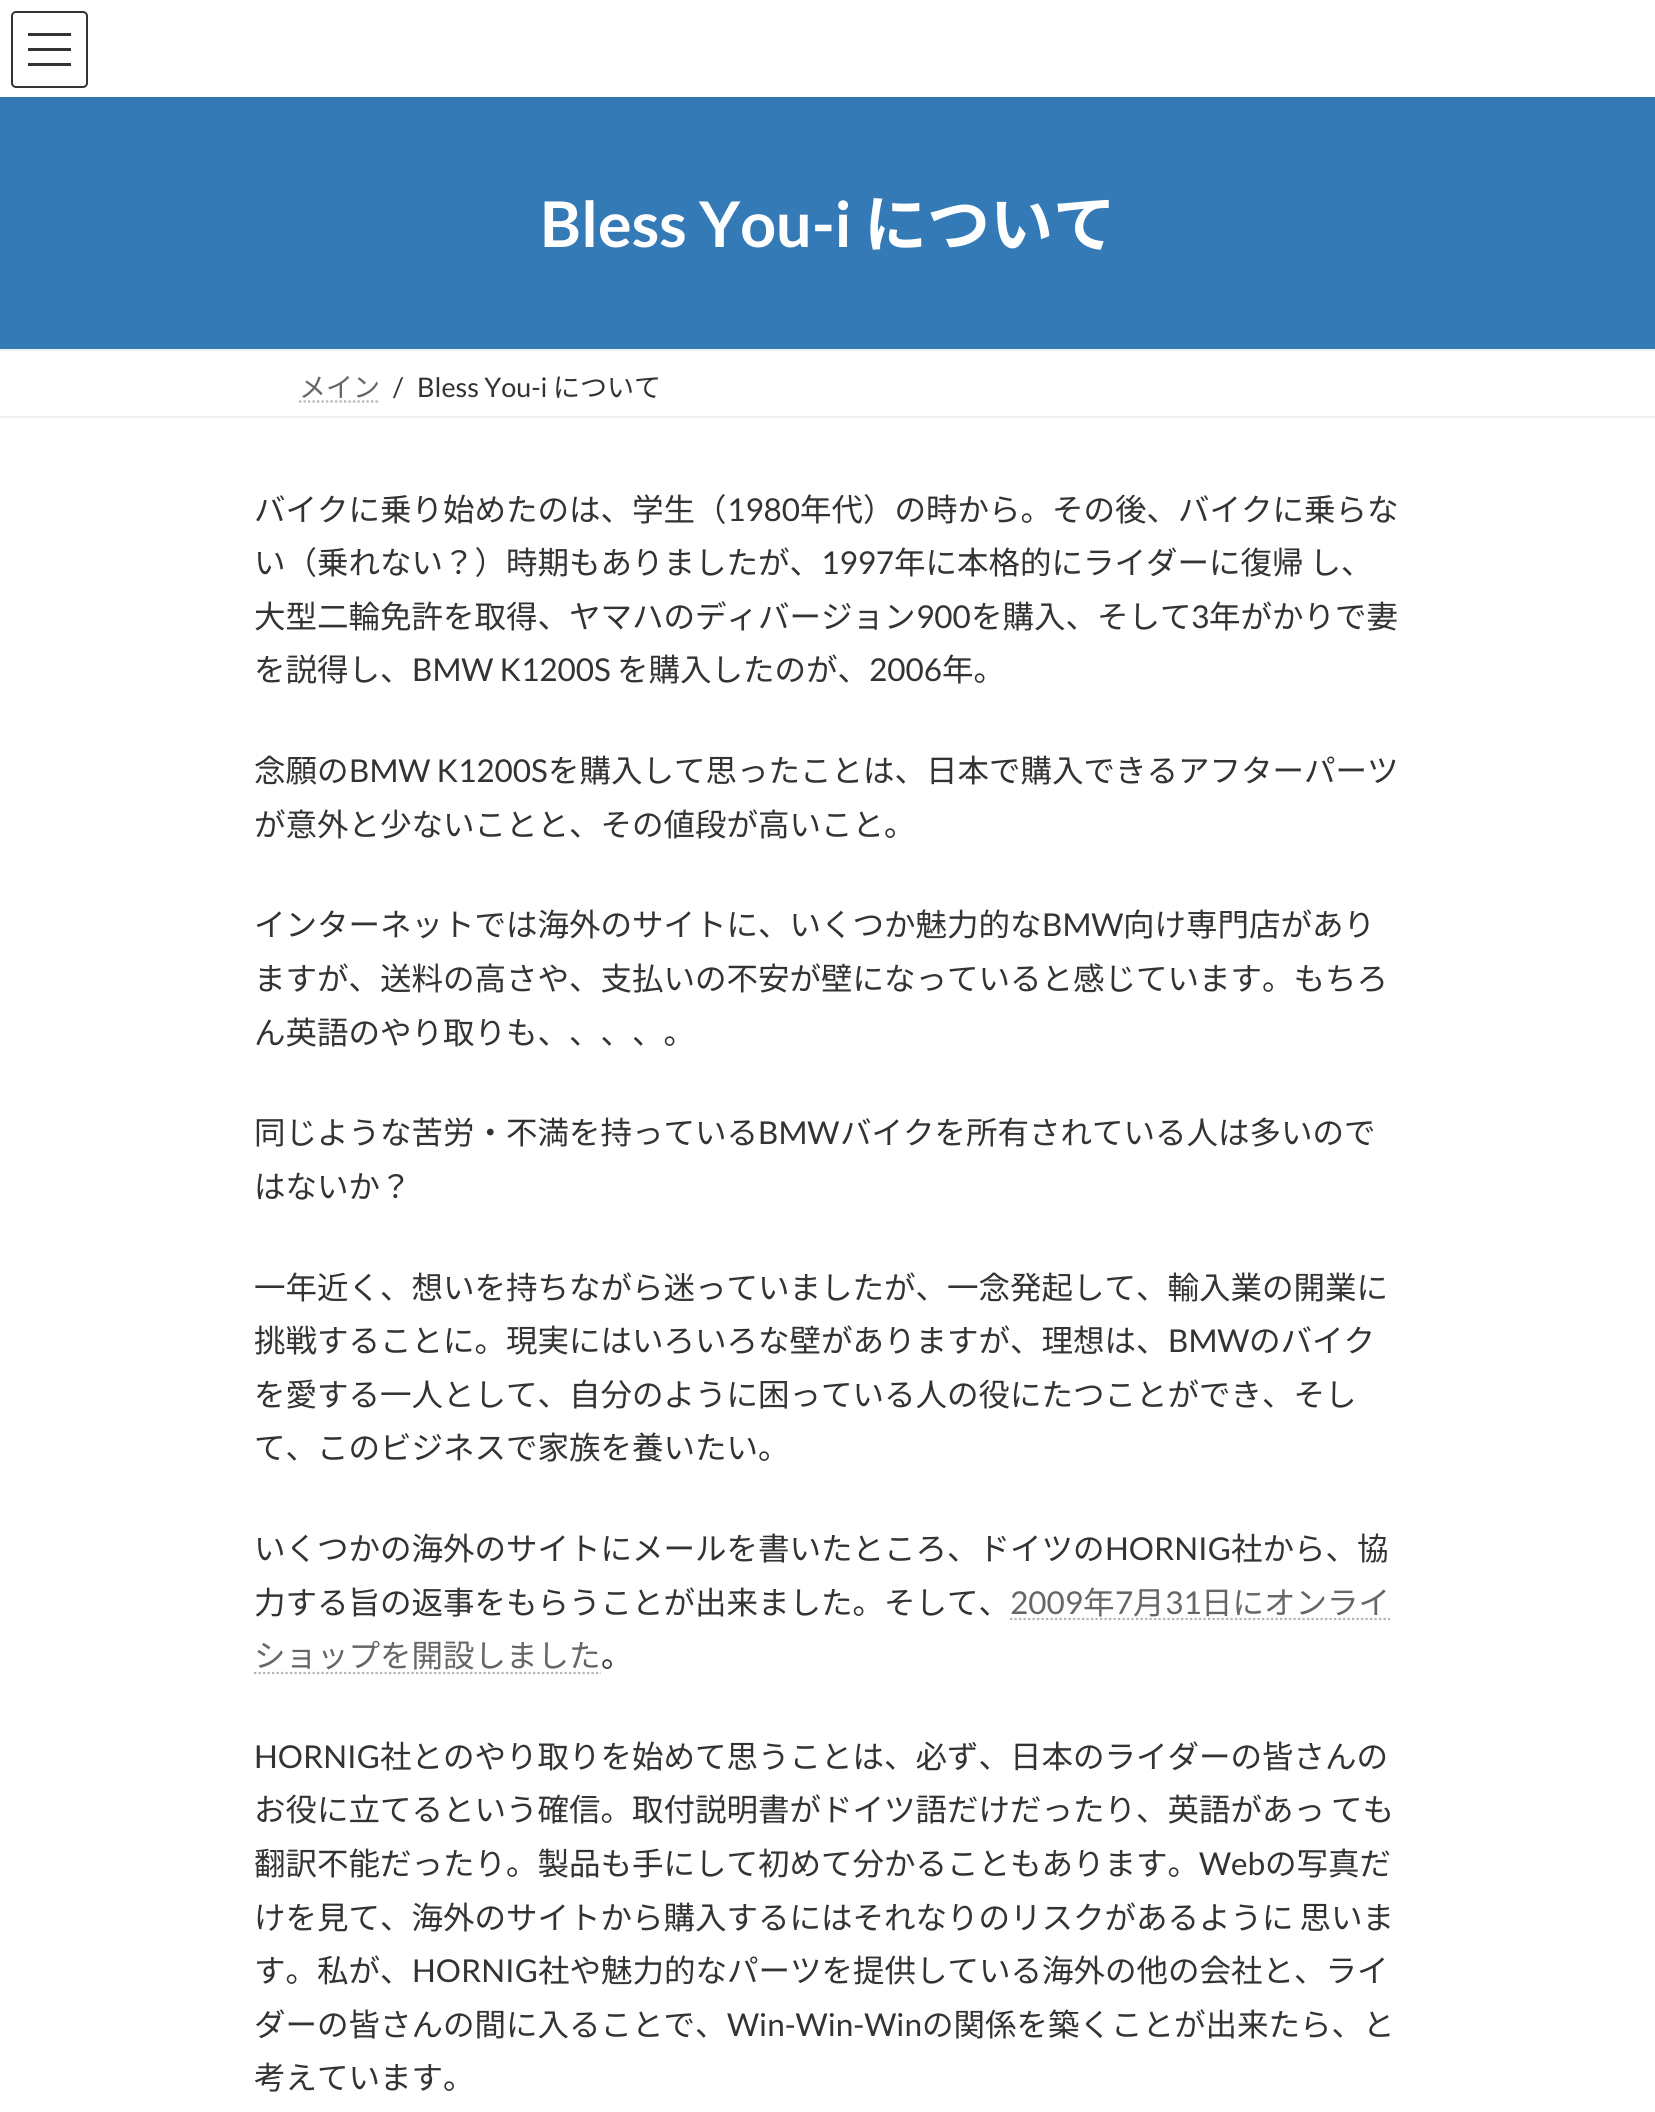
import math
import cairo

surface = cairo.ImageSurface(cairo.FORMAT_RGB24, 1655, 2112)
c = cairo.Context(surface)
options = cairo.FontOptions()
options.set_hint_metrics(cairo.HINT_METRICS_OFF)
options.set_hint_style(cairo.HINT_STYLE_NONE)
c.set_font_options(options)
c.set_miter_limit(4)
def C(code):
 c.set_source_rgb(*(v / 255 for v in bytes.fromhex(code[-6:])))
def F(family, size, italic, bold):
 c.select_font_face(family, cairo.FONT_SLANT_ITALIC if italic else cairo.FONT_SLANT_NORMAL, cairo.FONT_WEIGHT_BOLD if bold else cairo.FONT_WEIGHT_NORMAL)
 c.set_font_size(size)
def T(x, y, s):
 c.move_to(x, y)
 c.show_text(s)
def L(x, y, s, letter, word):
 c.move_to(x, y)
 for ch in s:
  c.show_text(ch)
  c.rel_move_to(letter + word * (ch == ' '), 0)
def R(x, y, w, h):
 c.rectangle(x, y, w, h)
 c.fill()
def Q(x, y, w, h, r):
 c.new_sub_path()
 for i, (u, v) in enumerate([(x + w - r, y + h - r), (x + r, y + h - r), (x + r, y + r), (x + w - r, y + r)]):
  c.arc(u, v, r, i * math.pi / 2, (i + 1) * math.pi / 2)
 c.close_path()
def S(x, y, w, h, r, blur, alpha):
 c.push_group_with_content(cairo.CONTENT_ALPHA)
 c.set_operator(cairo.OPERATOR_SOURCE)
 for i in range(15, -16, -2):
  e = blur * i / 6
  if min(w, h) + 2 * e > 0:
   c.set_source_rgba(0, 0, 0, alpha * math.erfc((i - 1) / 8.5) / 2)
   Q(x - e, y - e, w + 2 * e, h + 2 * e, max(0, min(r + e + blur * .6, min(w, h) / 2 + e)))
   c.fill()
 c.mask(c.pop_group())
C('ffffff')
c.paint()
C('337ab7')
R(0,97,1655,252)
C('000000')
S(0,2,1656,97,0,3.5,.05)
C('ffffff')
R(0,0,1655,97)
C('333333')
R(28,33,43,3)
R(28,48,43,3)
R(28,63,43,3)
Q(12,12,75,75,4)
c.stroke()
F('Lato',63,0,1)
C('ffffff')
T(540,247,'Bless You-i')
F('Noto Sans JP',63,0,1)
T(864,247,'について')
C('f0f0f0')
R(0,349,1655,2)
R(0,416,1655,2)
F('Noto Sans JP',27,0,0)
C('666666')
T(299,397,'メイン')
c.new_path()
c.move_to(299,401.5)
c.line_to(380,401.5)
C('b3b3b3')
c.set_line_width(2.2)
c.set_dash([2.25,2.25])
c.stroke()
F('Lato',27,0,0)
C('333333')
T(393,397,'/')
T(417,397,'Bless You-i')
F('Noto Sans JP',27,0,0)
T(553,397,'について')
F('Noto Sans JP',31.5,0,0)
T(254,521,'バイクに乗り始めたのは、学生（')
F('Lato',31.5,0,0)
T(727,521,'1980')
F('Noto Sans JP',31.5,0,0)
T(800,521,'年代）の時から。その後、バイクに乗らな')
T(254,574,'い（乗れない？）時期もありましたが、')
F('Lato',31.5,0,0)
T(821,574,'1997')
F('Noto Sans JP',31.5,0,0)
L(894,574,'年に本格的にライダーに復帰 し、',0,-1)
T(254,628,'大型二輪免許を取得、ヤマハのディバージョン')
F('Lato',31.5,0,0)
T(916,628,'900')
F('Noto Sans JP',31.5,0,0)
T(971,628,'を購入、そして')
F('Lato',31.5,0,0)
T(1191,628,'3')
F('Noto Sans JP',31.5,0,0)
T(1209,628,'年がかりで妻')
T(254,681,'を説得し、')
F('Lato',31.5,0,0)
T(412,681,'BMW K1200S')
F('Noto Sans JP',31.5,0,0)
T(617,681,'を購入したのが、')
F('Lato',31.5,0,0)
T(869,681,'2006')
F('Noto Sans JP',31.5,0,0)
T(942,681,'年。')
T(254,782,'念願の')
F('Lato',31.5,0,0)
T(349,782,'BMW K1200S')
F('Noto Sans JP',31.5,0,0)
T(548,782,'を購入して思ったことは、日本で購入できるアフターパーツ')
T(254,836,'が意外と少ないことと、その値段が高いこと。')
T(254,936,'インターネットでは海外のサイトに、いくつか魅力的な')
F('Lato',31.5,0,0)
T(1042,936,'BMW')
F('Noto Sans JP',31.5,0,0)
T(1123,936,'向け専門店があり')
T(254,990,'ますが、送料の高さや、支払いの不安が壁になっていると感じています。もちろ')
T(254,1044,'ん英語のやり取りも、、、、。')
T(254,1144,'同じような苦労・不満を持っている')
F('Lato',31.5,0,0)
T(758,1144,'BMW')
F('Noto Sans JP',31.5,0,0)
T(840,1144,'バイクを所有されている人は多いので')
T(254,1198,'はないか？')
T(254,1299,'一年近く、想いを持ちながら迷っていましたが、一念発起して、輸入業の開業に')
T(254,1352,'挑戦することに。現実にはいろいろな壁がありますが、理想は、')
F('Lato',31.5,0,0)
T(1168,1352,'BMW')
F('Noto Sans JP',31.5,0,0)
T(1249,1352,'のバイク')
T(254,1406,'を愛する一人として、自分のように困っている人の役にたつことができ、そし')
T(254,1459,'て、このビジネスで家族を養いたい。')
T(254,1560,'いくつかの海外のサイトにメールを書いたところ、ドイツの')
F('Lato',31.5,0,0)
T(1105,1560,'HORNIG')
F('Noto Sans JP',31.5,0,0)
T(1231,1560,'社から、協')
T(254,1614,'力する旨の返事をもらうことが出来ました。そして、')
F('Lato',31.5,0,0)
C('666666')
T(1010,1614,'2009')
c.new_path()
c.move_to(1010,1619)
c.line_to(1390,1619)
C('b3b3b3')
c.stroke()
F('Noto Sans JP',31.5,0,0)
C('666666')
T(1083,1614,'年')
F('Lato',31.5,0,0)
T(1115,1614,'7')
F('Noto Sans JP',31.5,0,0)
T(1133,1614,'月')
F('Lato',31.5,0,0)
T(1165,1614,'31')
F('Noto Sans JP',31.5,0,0)
T(1201,1614,'日にオンライ')
T(254,1667,'ショップを開設しました')
c.new_path()
c.move_to(254,1673)
c.line_to(601,1673)
C('b3b3b3')
c.stroke()
C('333333')
T(601,1667,'。')
F('Lato',31.5,0,0)
T(254,1768,'HORNIG')
F('Noto Sans JP',31.5,0,0)
T(380,1768,'社とのやり取りを始めて思うことは、必ず、日本のライダーの皆さんの')
L(254,1821,'お役に立てるという確信。取付説明書がドイツ語だけだったり、英語があっ ても',0,-1)
T(254,1875,'翻訳不能だったり。製品も手にして初めて分かることもあります。')
F('Lato',31.5,0,0)
T(1199,1875,'Web')
F('Noto Sans JP',31.5,0,0)
T(1265,1875,'の写真だ')
L(254,1929,'けを見て、海外のサイトから購入するにはそれなりのリスクがあるように 思いま',0,-1)
T(254,1982,'す。私が、')
F('Lato',31.5,0,0)
T(412,1982,'HORNIG')
F('Noto Sans JP',31.5,0,0)
T(538,1982,'社や魅力的なパーツを提供している海外の他の会社と、ライ')
T(254,2036,'ダーの皆さんの間に入ることで、')
F('Lato',31.5,0,0)
T(727,2036,'Win-Win-Win')
F('Noto Sans JP',31.5,0,0)
T(922,2036,'の関係を築くことが出来たら、と')
T(254,2089,'考えています。')
surface.write_to_png('o.png')
